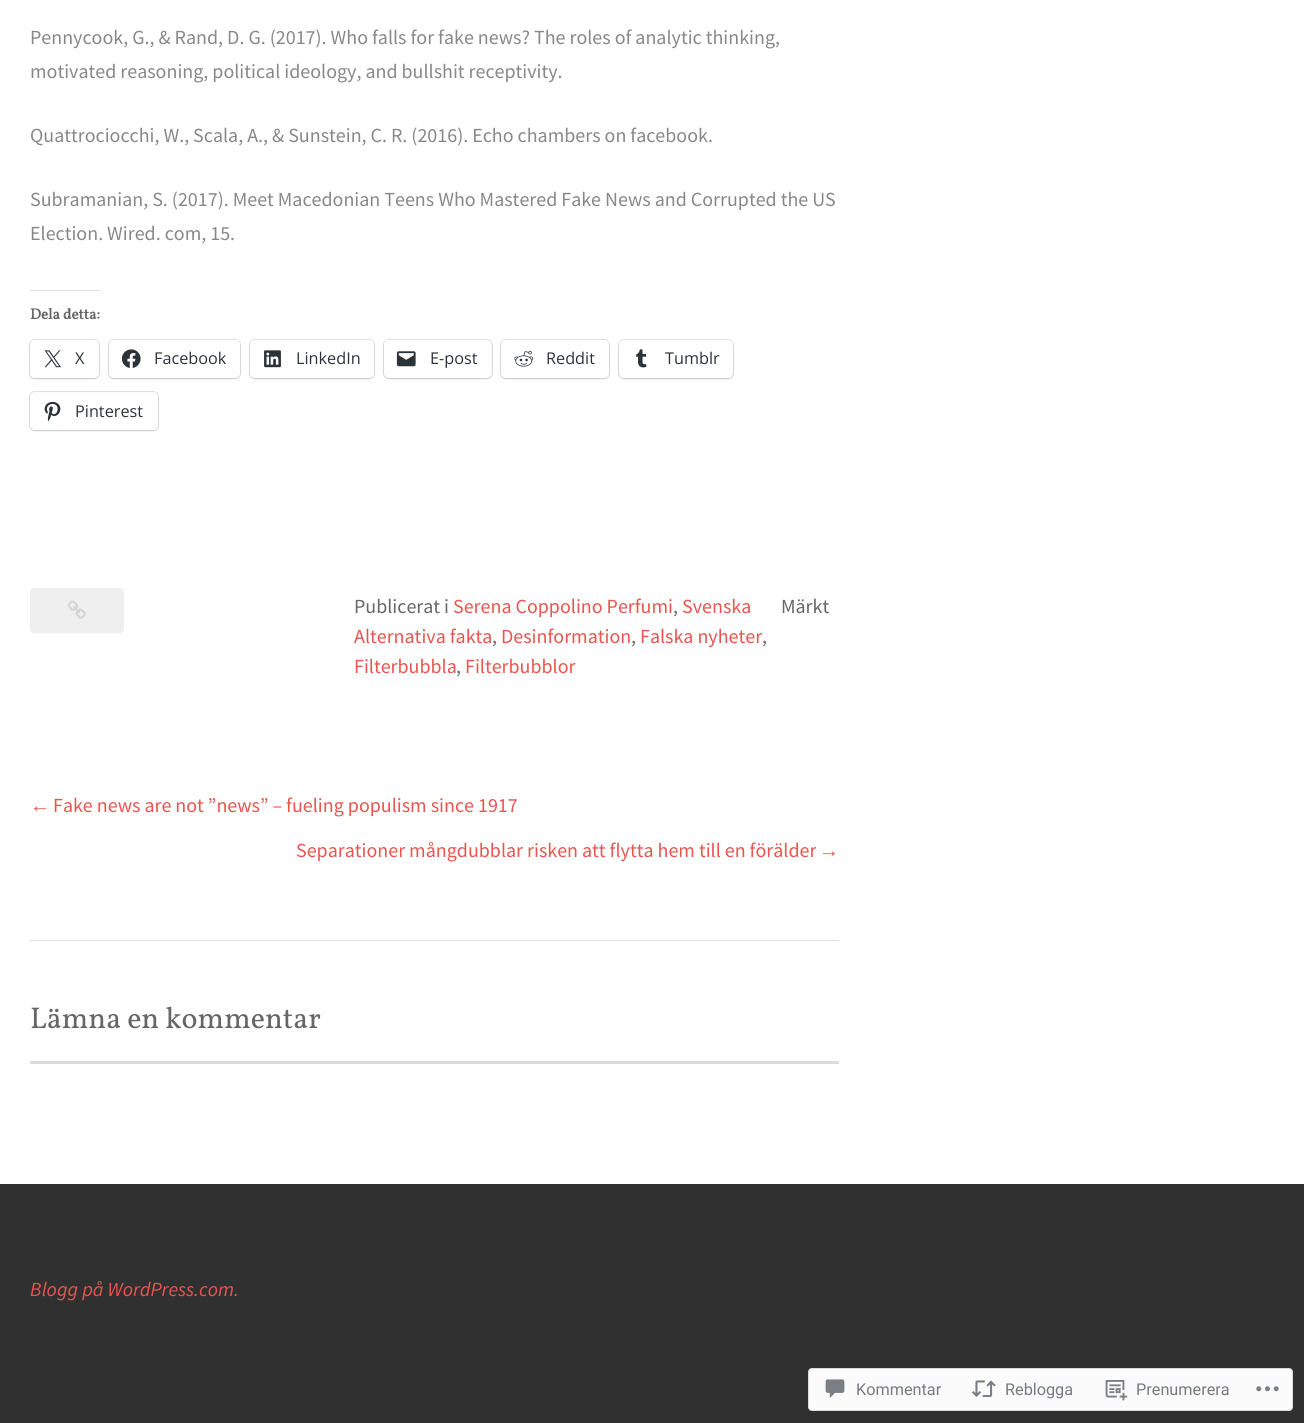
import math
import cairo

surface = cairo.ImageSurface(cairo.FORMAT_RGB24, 1304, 1423)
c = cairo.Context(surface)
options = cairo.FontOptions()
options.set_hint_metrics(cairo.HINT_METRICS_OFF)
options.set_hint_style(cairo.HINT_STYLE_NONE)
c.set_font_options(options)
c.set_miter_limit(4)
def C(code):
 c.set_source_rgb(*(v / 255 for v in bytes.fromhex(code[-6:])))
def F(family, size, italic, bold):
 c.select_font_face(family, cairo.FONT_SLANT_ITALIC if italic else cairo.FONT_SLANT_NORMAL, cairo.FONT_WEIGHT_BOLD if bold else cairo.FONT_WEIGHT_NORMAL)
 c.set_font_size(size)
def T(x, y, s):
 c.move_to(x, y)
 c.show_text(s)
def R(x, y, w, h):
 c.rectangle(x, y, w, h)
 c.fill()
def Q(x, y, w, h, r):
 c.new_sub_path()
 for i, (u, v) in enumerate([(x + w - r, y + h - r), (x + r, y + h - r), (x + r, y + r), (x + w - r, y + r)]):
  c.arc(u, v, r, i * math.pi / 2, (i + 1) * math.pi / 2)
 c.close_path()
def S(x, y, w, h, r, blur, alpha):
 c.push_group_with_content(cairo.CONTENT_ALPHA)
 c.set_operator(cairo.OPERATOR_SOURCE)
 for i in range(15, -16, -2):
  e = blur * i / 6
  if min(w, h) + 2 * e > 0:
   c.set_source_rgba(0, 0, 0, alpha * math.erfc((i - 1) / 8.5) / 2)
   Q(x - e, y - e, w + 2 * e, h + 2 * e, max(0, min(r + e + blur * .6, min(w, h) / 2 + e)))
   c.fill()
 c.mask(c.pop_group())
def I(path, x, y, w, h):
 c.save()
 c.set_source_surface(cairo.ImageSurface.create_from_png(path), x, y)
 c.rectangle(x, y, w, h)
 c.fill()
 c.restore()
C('ffffff')
c.paint()
F('Source Sans Pro',20,0,0)
C('888888')
T(30,44,'Pennycook, G., & Rand, D. G. (2017). Who falls for fake news? The roles of analytic thinking,')
T(30,78,'motivated reasoning, political ideology, and bullshit receptivity.')
T(30,142,'Quattrociocchi, W., Scala, A., & Sunstein, C. R. (2016). Echo chambers on facebook.')
T(30,206,'Subramanian, S. (2017). Meet Macedonian Teens Who Mastered Fake News and Corrupted the US')
T(30,240,'Election. Wired. com, 15.')
C('dcdcde')
R(30,290,70,1)
F('Vollkorn',15,0,1)
C('666666')
T(30,319,'Dela detta:')
Q(29.5,339.5,70,39,5.5)
C('e0e0e0')
c.set_line_width(1)
c.stroke()
C('000000')
S(30,341,69,38,5,1,.12)
C('ffffff')
Q(30,340,69,38,5)
c.fill()
I('1.png',44,350,17,18)
F('Open Sans',16.25,0,0)
C('2c3338')
T(75,364,'X')
Q(108.5,339.5,132,39,5.5)
C('e0e0e0')
c.stroke()
C('000000')
S(109,341,131,38,5,1,.12)
C('ffffff')
Q(109,340,131,38,5)
c.fill()
I('2.png',121,349,20,19)
C('2c3338')
T(154,364,'Facebook')
Q(249.5,339.5,125,39,5.5)
C('e0e0e0')
c.stroke()
C('000000')
S(250,341,124,38,5,1,.12)
C('ffffff')
Q(250,340,124,38,5)
c.fill()
I('3.png',264,350,17,18)
C('2c3338')
T(296,364,'LinkedIn')
Q(383.5,339.5,109,39,5.5)
C('e0e0e0')
c.stroke()
C('000000')
S(384,341,107,38,5,1,.12)
C('ffffff')
Q(384,340,107,38,5)
c.fill()
I('4.png',396,351,20,16)
C('2c3338')
T(430,364,'E-post')
Q(500.5,339.5,109,39,5.5)
C('e0e0e0')
c.stroke()
C('000000')
S(501,341,108,38,5,1,.12)
C('ffffff')
Q(501,340,108,38,5)
c.fill()
I('5.png',514,350,20,17)
C('2c3338')
T(546,364,'Reddit')
Q(618.5,339.5,115,39,5.5)
C('e0e0e0')
c.stroke()
C('000000')
S(619,341,114,38,5,1,.12)
C('ffffff')
Q(619,340,114,38,5)
c.fill()
I('6.png',636,349,11,19)
C('2c3338')
T(665,364,'Tumblr')
Q(29.5,391.5,129,39,5.5)
C('e0e0e0')
c.stroke()
C('000000')
S(30,394,128,37,5,1,.12)
C('ffffff')
Q(30,393,128,37,5)
c.fill()
I('7.png',44,401,17,21)
C('2c3338')
T(75,417,'Pinterest')
C('efefef')
Q(30,588,94,45,4)
c.fill()
I('8.png',67,600,19,19)
F('Source Sans Pro',20,0,0)
C('666666')
T(354,613,'Publicerat i')
C('e8554e')
T(453,613,'Serena Coppolino Perfumi')
C('666666')
T(673,613,',')
C('e8554e')
T(682,613,'Svenska')
C('666666')
T(781,613,'Märkt')
C('e8554e')
T(354,643,'Alternativa fakta')
C('666666')
T(492,643,',')
C('e8554e')
T(501,643,'Desinformation')
C('666666')
T(631,643,',')
C('e8554e')
T(640,643,'Falska nyheter')
C('666666')
T(762,643,',')
C('e8554e')
T(354,673,'Filterbubbla')
C('666666')
T(456,673,',')
C('e8554e')
T(465,673,'Filterbubblor')
F('Liberation Sans',20,0,0)
T(30,812,'←')
F('Source Sans Pro',20,0,0)
T(53,812,'Fake news are not ”news” – fueling populism since 1917')
T(296,857,'Separationer mångdubblar risken att flytta hem till en förälder')
F('Liberation Sans',20,0,0)
T(819,857,'→')
C('dddddd')
R(30,940,809,1)
F('Vollkorn',30,0,0)
C('666666')
T(30,1028,'Lämna en kommentar')
C('dcdcde')
R(30,1061,809,3)
C('303030')
R(0,1184,1304,239)
F('Source Sans Pro',20,1,0)
C('e8554e')
T(30,1296,'Blogg på WordPress.com.')
C('fbfbfb')
Q(808.5,1368.5,484,42,3.5)
c.fill_preserve()
C('d9d9db')
c.stroke()
I('9.png',825,1379,20,19)
F('Roboto',16.25,0,0)
C('777a80')
T(856,1395,'Kommentar')
I('10.png',971,1380,25,18)
T(1005,1395,'Reblogga')
I('11.png',1105,1380,23,21)
T(1136,1395,'Prenumerera')
I('12.png',1256,1386,23,6)
surface.write_to_png('o.png')
